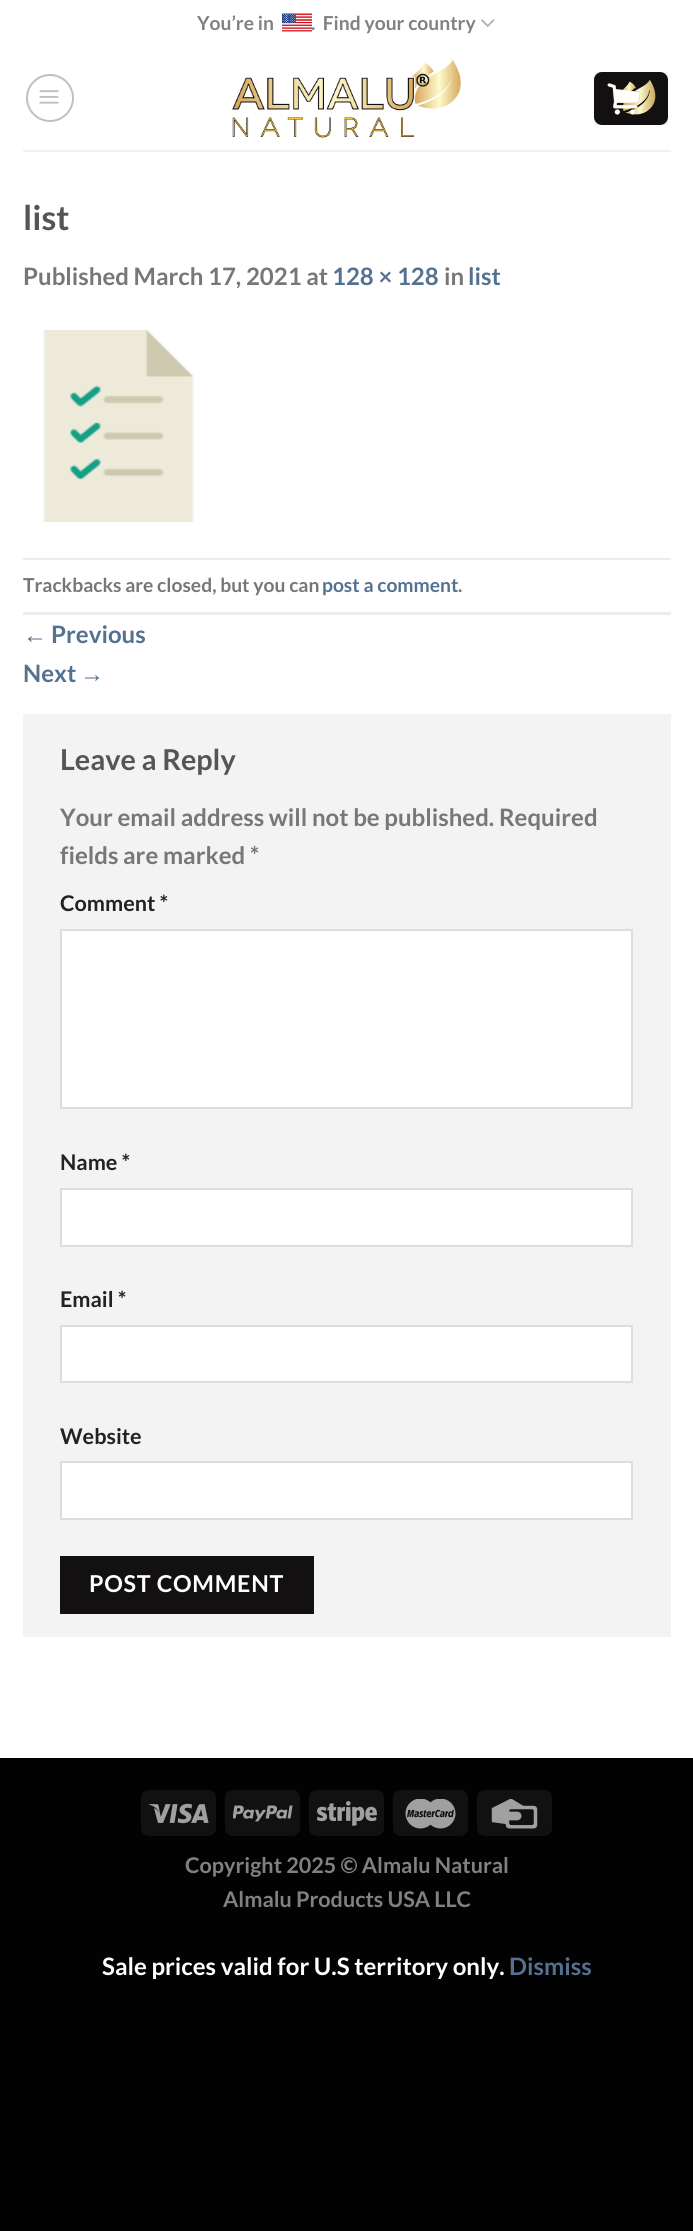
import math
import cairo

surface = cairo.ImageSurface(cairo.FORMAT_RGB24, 693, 2231)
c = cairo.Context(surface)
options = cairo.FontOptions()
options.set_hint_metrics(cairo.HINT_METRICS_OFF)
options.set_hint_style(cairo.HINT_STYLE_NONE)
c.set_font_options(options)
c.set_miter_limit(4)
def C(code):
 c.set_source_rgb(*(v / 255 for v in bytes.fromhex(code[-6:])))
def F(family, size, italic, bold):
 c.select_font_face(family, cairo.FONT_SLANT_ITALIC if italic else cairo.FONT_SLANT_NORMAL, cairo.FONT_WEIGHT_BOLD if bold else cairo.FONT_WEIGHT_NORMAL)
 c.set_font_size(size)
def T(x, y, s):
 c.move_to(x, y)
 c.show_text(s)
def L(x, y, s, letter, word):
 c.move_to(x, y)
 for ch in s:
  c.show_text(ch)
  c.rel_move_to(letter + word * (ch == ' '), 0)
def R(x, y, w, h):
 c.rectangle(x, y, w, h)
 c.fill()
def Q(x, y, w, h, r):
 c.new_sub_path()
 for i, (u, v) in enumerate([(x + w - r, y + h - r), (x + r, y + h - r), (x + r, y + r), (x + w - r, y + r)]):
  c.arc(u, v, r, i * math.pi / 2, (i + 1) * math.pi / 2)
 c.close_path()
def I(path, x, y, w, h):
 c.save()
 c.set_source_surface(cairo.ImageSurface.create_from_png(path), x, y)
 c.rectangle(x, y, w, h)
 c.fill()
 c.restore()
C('020202')
c.paint()
C('ffffff')
R(0,0,693,1758)
F('Lato',19.25,0,1)
C('818181')
T(197,30,'You’re in')
I('1.png',282,13,30,19)
T(311,30,'.  Find your country')
I('2.png',481,19,14,8)
c.arc(50,98,23,0,2 * math.pi)
C('c0c0c0')
c.stroke()
I('3.png',39,90,20,14)
I('4.png',232,59,229,79)
C('121010')
Q(594,72,74,53,8)
c.fill()
c.rectangle(595,73,72,51)
c.set_source_rgba(0,0,0,0.05)
c.stroke()
I('5.png',607,79,49,36)
C('f1f1f1')
R(23,150,648,2)
F('Lato',34,0,1)
C('555555')
T(23,230,'list')
F('Lato',24,0,1)
C('777777')
T(23,285,'Published March 17, 2021 at')
C('547190')
T(332,285,'128 × 128')
C('777777')
T(444,285,'in')
C('547190')
T(468,285,'list')
I('6.png',43,330,151,192)
C('ececec')
R(23,558,648,2)
R(23,612,648,3)
F('Lato',19.25,0,1)
C('777777')
T(23,592,'Trackbacks are closed, but you can')
C('547190')
T(322,592,'post a comment')
C('777777')
T(458,592,'.')
F('Liberation Sans',24,0,0)
C('547190')
T(23,643,'←')
F('Lato',24,0,1)
T(51,643,'Previous')
T(23,682,'Next')
F('Liberation Sans',24,0,0)
T(80,682,'→')
C('f3f3f3')
R(23,714,648,923)
F('Lato',28.75,0,1)
C('555555')
T(60,770,'Leave a Reply')
F('Lato',24,0,1)
C('777777')
T(60,826,'Your email address will not be published. Required')
T(60,864,'fields are marked *')
F('Lato',21.6,0,1)
C('222222')
T(60,911,'Comment *')
C('ffffff')
c.rectangle(61,930,571,178)
c.fill_preserve()
C('dddddd')
c.stroke()
C('222222')
T(60,1170,'Name *')
C('ffffff')
c.rectangle(61,1189,571,57)
c.fill_preserve()
C('dddddd')
c.stroke()
C('222222')
T(60,1307,'Email *')
C('ffffff')
c.rectangle(61,1326,571,56)
c.fill_preserve()
C('dddddd')
c.stroke()
C('222222')
T(60,1444,'Website')
C('ffffff')
c.rectangle(61,1462,571,57)
c.fill_preserve()
C('dddddd')
c.stroke()
C('121010')
R(60,1556,254,58)
F('Lato',23.25,0,1)
C('ffffff')
L(89,1592,'POST COMMENT',.75,0)
C('111111')
Q(141,1790,75,46,8)
c.fill()
I('7.png',149,1803,60,21)
Q(225,1790,75,46,8)
c.fill()
I('8.png',233,1805,60,17)
Q(309,1790,75,46,8)
c.fill()
I('9.png',317,1801,60,25)
Q(393,1790,75,46,8)
c.fill()
I('10.png',405,1799,51,30)
Q(477,1790,75,46,8)
c.fill()
I('11.png',491,1799,47,30)
F('Lato',21.6,0,1)
C('818181')
T(185,1873,'Copyright 2025 © Almalu Natural')
T(223,1907,'Almalu Products USA LLC')
F('Lato',24,0,1)
C('ffffff')
T(102,1975,'Sale prices valid for U.S territory only.')
C('547190')
T(509,1975,'Dismiss')
surface.write_to_png('o.png')
